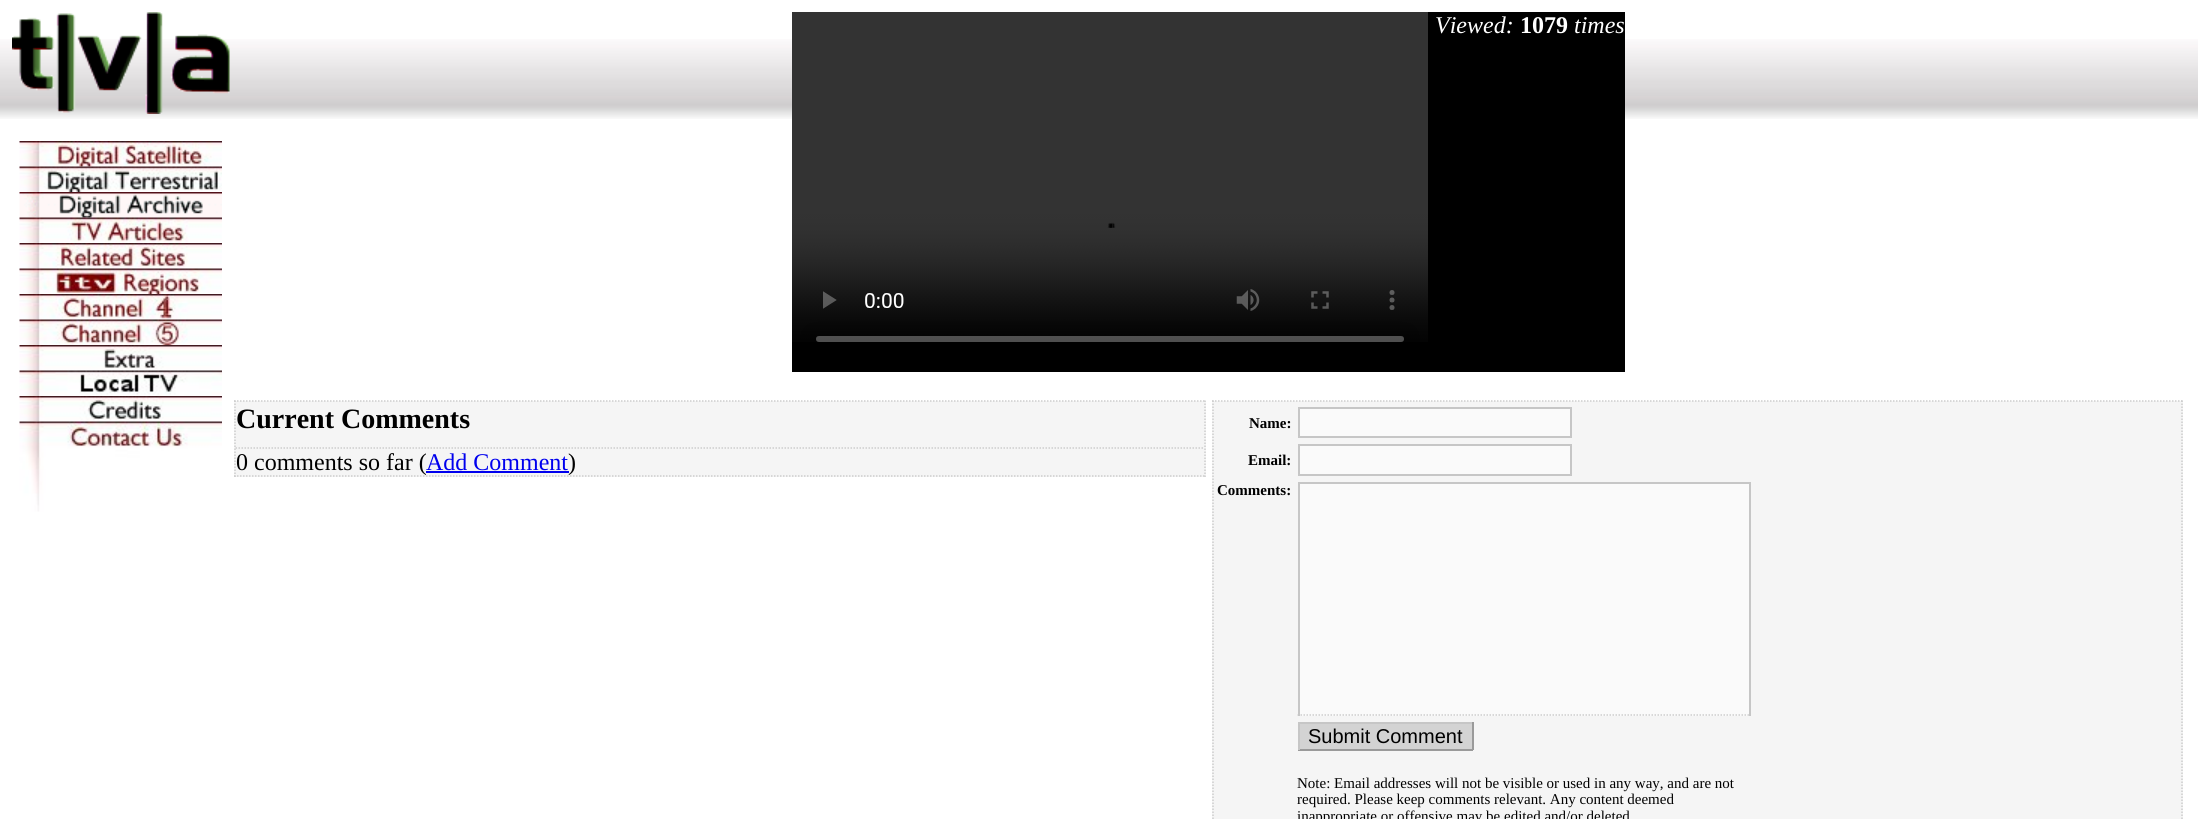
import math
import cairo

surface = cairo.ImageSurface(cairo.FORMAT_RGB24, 2198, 819)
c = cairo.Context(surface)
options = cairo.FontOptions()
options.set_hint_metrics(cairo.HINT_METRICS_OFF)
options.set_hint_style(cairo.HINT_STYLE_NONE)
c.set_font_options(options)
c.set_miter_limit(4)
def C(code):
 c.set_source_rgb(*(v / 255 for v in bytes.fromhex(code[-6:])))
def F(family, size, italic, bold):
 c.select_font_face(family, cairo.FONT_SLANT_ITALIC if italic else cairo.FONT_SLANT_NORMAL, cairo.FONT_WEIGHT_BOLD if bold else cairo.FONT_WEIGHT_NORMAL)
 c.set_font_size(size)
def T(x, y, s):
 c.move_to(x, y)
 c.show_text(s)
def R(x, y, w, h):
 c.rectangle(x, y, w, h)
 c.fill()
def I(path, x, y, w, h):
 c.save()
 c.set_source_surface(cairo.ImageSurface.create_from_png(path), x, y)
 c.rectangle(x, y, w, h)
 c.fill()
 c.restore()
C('ffffff')
c.paint()
I('1.png',0,39,2198,80)
I('2.png',12,12,218,102)
I('3.png',19,141,203,26)
I('4.png',19,166,203,26)
I('5.png',19,192,203,26)
I('6.png',19,217,203,26)
I('7.png',19,243,203,26)
I('8.png',19,268,203,26)
I('9.png',19,294,203,26)
I('10.png',19,319,203,26)
I('11.png',19,345,203,26)
I('12.png',19,370,203,26)
I('13.png',19,396,203,26)
I('14.png',19,421,203,91)
C('000000')
R(792,12,833,360)
I('15.png',792,12,636,330)
F('Liberation Serif',24,1,0)
C('ffffff')
T(1435,33,'Viewed:')
F('Liberation Serif',24,0,1)
T(1520,33,'1079')
F('Liberation Serif',24,1,0)
T(1574,33,'times')
C('f5f5f5')
R(234,401,972,76)
c.new_path()
c.move_to(234,401)
c.line_to(1206,401)
C('cccccc')
c.set_line_width(1.5)
c.set_dash([1.5,1.5])
c.stroke()
c.new_path()
c.move_to(1205,400.5)
c.line_to(1205,477)
c.stroke()
c.new_path()
c.move_to(234,476)
c.line_to(1206,476)
c.stroke()
c.new_path()
c.move_to(235,400.5)
c.line_to(235,477)
c.stroke()
c.new_path()
c.move_to(235.5,448)
c.line_to(1204.5,448)
c.stroke()
F('Liberation Serif',28,0,1)
C('000000')
T(236,428,'Current Comments')
F('Liberation Serif',24,0,0)
T(236,470,'0 comments so far (')
C('0000ee')
T(426,470,'Add Comment')
R(426,471,143,2)
C('000000')
T(568,470,')')
C('f5f5f5')
R(1212,401,971,418)
c.new_path()
c.move_to(1212,401)
c.line_to(2182.5,401)
C('cccccc')
c.stroke()
c.new_path()
c.move_to(2182,400.5)
c.line_to(2182,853.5)
c.stroke()
c.new_path()
c.move_to(1213,400.5)
c.line_to(1213,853.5)
c.stroke()
F('Liberation Serif',15,0,1)
C('000000')
T(1249,428,'Name:')
C('fafafa')
c.rectangle(1299,408,272,29)
c.fill_preserve()
C('c6c6c6')
c.set_line_width(2)
c.set_dash([])
c.stroke()
C('000000')
T(1248,465,'Email:')
C('fafafa')
c.rectangle(1299,445,272,30)
c.fill_preserve()
C('c6c6c6')
c.stroke()
C('000000')
T(1217,495,'Comments:')
C('fafafa')
R(1300,484,449,232)
C('c6c6c6')
R(1298,482,453,2)
R(1749,482,2,234)
c.new_path()
c.move_to(1297.5,715)
c.line_to(1750.5,715)
C('cccccc')
c.set_line_width(1.5)
c.set_dash([1.5,1.5])
c.stroke()
C('c6c6c6')
R(1298,482,2,234)
C('d3d3d3')
R(1300,724,172,25)
C('c6c6c6')
R(1298,722,175,2)
C('9a9a9a')
R(1472,722,2,28)
R(1298,749,175,2)
C('c6c6c6')
R(1298,722,2,28)
F('Liberation Sans',20,0,0)
C('000000')
T(1308,743,'Submit Comment')
F('Liberation Serif',15,0,0)
T(1297,788,'Note: Email addresses will not be visible or used in any way, and are not')
T(1297,804,'required. Please keep comments relevant. Any content deemed')
T(1297,821,'inappropriate or offensive may be edited and/or deleted')
surface.write_to_png('o.png')
